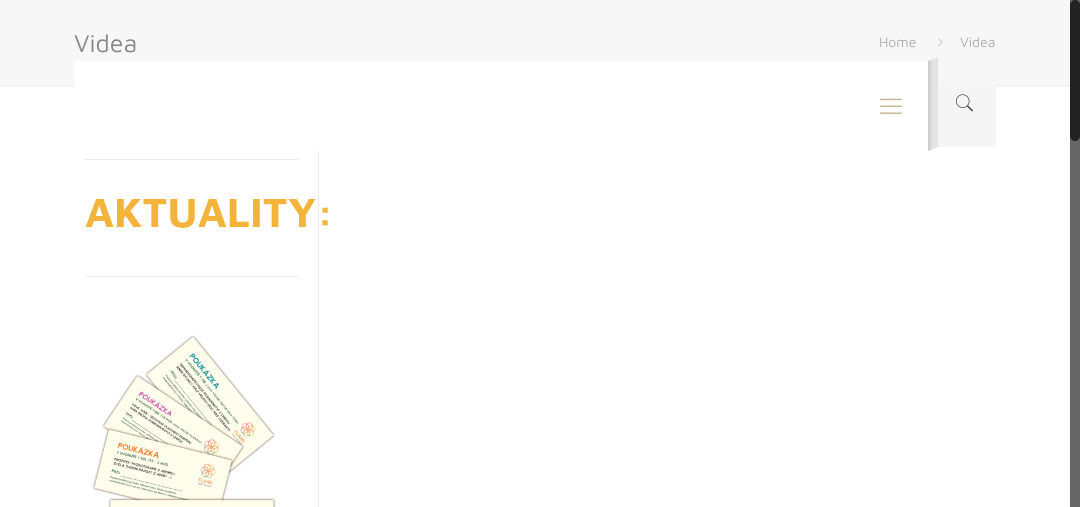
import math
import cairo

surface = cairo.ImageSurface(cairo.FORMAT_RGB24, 1080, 507)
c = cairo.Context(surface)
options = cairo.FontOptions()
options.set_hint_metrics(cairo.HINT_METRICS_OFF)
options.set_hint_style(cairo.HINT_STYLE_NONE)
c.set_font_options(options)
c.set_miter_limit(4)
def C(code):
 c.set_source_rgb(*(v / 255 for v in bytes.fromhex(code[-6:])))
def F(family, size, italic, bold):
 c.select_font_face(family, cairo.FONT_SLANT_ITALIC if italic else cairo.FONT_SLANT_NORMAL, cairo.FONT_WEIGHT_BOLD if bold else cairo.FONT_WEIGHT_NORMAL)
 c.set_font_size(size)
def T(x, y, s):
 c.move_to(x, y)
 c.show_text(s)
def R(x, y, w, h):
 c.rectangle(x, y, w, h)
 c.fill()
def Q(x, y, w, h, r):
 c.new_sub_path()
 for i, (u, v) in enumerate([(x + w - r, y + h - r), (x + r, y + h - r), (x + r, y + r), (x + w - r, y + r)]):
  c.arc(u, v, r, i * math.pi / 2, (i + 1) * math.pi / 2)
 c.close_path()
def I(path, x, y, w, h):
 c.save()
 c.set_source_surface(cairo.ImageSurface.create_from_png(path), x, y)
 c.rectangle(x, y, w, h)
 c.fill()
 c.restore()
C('ffffff')
c.paint()
C('f7f7f7')
R(0,0,1070,85)
F('Maven Pro',25,0,0)
C('888888')
T(74,52,'Videa')
F('Maven Pro',14,0,0)
C('adadad')
T(879,47,'Home')
I('1.png',938,38,5,8)
T(960,47,'Videa')
I('2.png',0,85,1070,2)
C('ffffff')
R(74,61,854,26)
I('3.png',880,98,22,16)
C('f5f5f5')
R(938,85,58,62)
C('e3e3e3')
c.new_path()
c.move_to(928,61)
c.line_to(938,57)
c.line_to(938,147)
c.line_to(928,151)
c.close_path()
c.fill()
I('4.png',928,60,4,91)
I('5.png',955,94,19,18)
C('ebebeb')
R(318,151,1,356)
C('e9e9e9')
R(85,159,213,1)
F('Maven Pro',42,0,1)
C('f4b43c')
T(85,227,'AKTUALITY:')
C('e9e9e9')
R(85,276,213,1)
I('6.png',92,335,184,172)
C('666666')
R(1070,0,10,507)
C('222222')
Q(1070,0,10,141,5)
c.fill()
surface.write_to_png('o.png')
